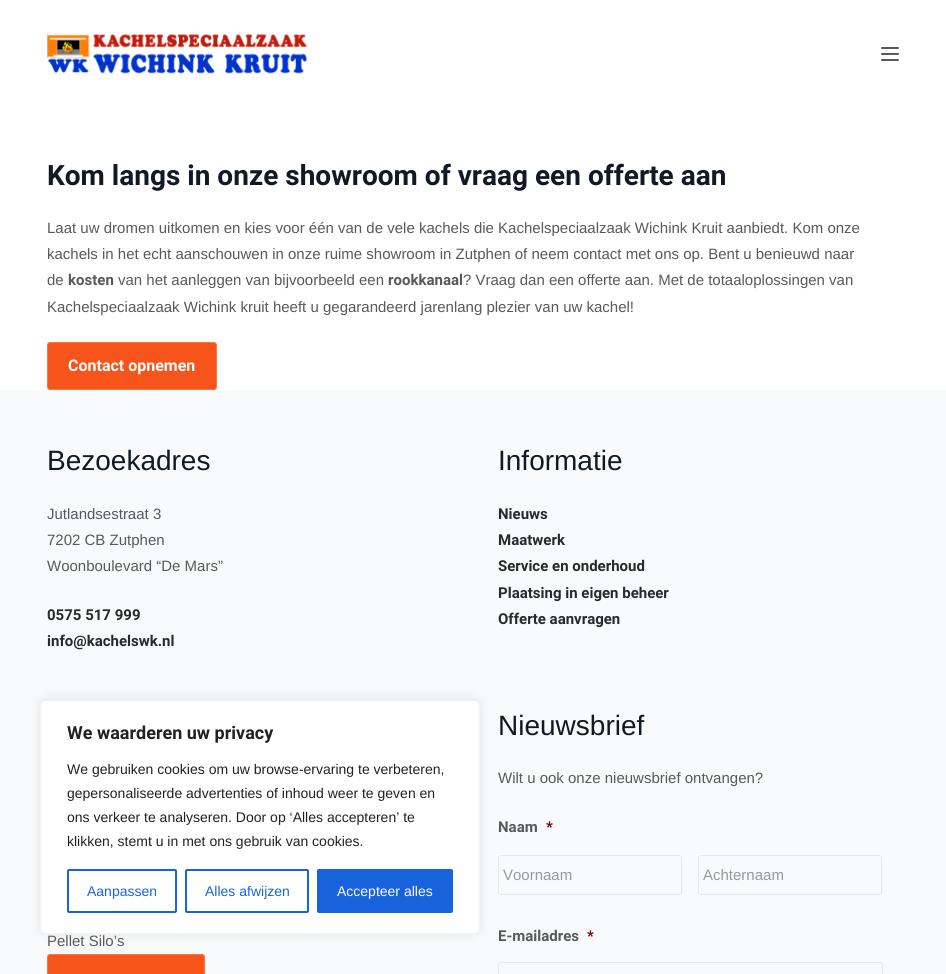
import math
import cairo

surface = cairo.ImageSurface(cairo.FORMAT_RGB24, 946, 974)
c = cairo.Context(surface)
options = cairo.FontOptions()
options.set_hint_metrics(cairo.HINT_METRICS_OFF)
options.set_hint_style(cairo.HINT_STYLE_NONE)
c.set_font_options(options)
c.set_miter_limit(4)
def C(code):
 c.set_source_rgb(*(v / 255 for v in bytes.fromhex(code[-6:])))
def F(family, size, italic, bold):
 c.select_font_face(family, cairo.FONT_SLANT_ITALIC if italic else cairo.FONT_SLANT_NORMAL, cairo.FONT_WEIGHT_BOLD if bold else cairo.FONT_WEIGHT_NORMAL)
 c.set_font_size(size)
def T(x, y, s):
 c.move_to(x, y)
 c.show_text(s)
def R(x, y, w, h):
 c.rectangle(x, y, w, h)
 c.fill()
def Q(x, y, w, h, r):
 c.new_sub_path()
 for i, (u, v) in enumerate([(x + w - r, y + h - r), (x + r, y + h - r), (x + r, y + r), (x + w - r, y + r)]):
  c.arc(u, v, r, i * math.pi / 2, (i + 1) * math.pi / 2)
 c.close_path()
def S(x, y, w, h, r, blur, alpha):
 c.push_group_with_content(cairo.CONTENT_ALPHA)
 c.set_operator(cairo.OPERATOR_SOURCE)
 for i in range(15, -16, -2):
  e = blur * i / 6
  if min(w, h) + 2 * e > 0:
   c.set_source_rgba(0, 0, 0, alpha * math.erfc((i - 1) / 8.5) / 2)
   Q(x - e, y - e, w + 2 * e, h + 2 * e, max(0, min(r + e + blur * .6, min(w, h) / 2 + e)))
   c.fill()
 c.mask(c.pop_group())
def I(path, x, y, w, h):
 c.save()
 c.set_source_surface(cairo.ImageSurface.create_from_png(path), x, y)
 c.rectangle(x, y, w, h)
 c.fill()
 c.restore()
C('ffffff')
c.paint()
I('1.png',47,33,261,41)
C('595959')
Q(881,47,18,2,1)
c.fill()
Q(881,53,18,2,1)
c.fill()
Q(881,59,18,2,1)
c.fill()
F('Roboto',28,0,1)
C('121926')
T(47,185,'Kom langs in onze showroom of vraag een offerte aan')
F('Liberation Sans',15,0,0)
C('595959')
T(47,233,'Laat uw dromen uitkomen en kies voor één van de vele kachels die Kachelspeciaalzaak Wichink Kruit aanbiedt. Kom onze')
T(47,259,'kachels in het echt aanschouwen in onze ruime showroom in Zutphen of neem contact met ons op. Bent u benieuwd naar')
T(47,285,'de')
F('Roboto',15,0,1)
T(68,285,'kosten')
F('Liberation Sans',15,0,0)
T(118,285,'van het aanleggen van bijvoorbeeld een')
F('Roboto',15,0,1)
T(388,285,'rookkanaal')
F('Liberation Sans',15,0,0)
T(463,285,'? Vraag dan een offerte aan. Met de totaaloplossingen van')
T(47,312,'Kachelspeciaalzaak Wichink kruit heeft u gegarandeerd jarenlang plezier van uw kachel!')
C('f6541b')
Q(47.5,342.5,169,47,2.5)
c.fill_preserve()
C('f77543')
c.set_line_width(1)
c.stroke()
F('Roboto',16,0,1)
C('ffffff')
T(68,371,'Contact opnemen')
C('f8fafc')
R(0,390,946,584)
F('Liberation Sans',28,0,0)
C('121926')
T(47,470,'Bezoekadres')
F('Liberation Sans',15,0,0)
C('595959')
T(47,519,'Jutlandsestraat 3')
T(47,545,'7202 CB Zutphen')
T(47,571,'Woonboulevard “De Mars”')
F('Roboto',15,0,1)
C('2a2a2a')
T(47,620,'0575 517 999')
T(47,646,'info@kachelswk.nl')
F('Liberation Sans',28,0,0)
C('121926')
T(498,470,'Informatie')
F('Roboto',15,0,1)
C('2a2a2a')
T(498,519,'Nieuws')
T(498,545,'Maatwerk')
T(498,571,'Service en onderhoud')
T(498,598,'Plaatsing in eigen beheer')
T(498,624,'Offerte aanvragen')
F('Liberation Sans',15,0,0)
C('595959')
T(47,946,'Pellet Silo’s')
C('f6541b')
Q(47.5,954.5,157,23,2.5)
c.fill_preserve()
C('f77543')
c.stroke()
F('Liberation Sans',28,0,0)
C('121926')
T(498,735,'Nieuwsbrief')
F('Liberation Sans',15,0,0)
C('595959')
T(498,783,'Wilt u ook onze nieuwsbrief ontvangen?')
F('Roboto',15,0,1)
T(498,832,'Naam')
C('790000')
T(546,832,'*')
Q(498.5,855.5,183,39,2.5)
C('e3e8ef')
c.stroke()
F('Liberation Sans',15,0,0)
C('99999a')
T(503,880,'Voornaam')
Q(698.5,855.5,183,39,2.5)
C('e3e8ef')
c.stroke()
C('99999a')
T(703,880,'Achternaam')
F('Roboto',15,0,1)
C('595959')
T(498,941,'E-mailadres')
C('790000')
T(587,941,'*')
Q(498.5,962.5,384,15,2.5)
C('e3e8ef')
c.stroke()
C('acabab')
S(40,699,440,234,6,5,.3)
C('ffffff')
Q(40.5,700.5,439,233,5.5)
c.fill_preserve()
C('f4f4f4')
c.stroke()
F('Roboto',18,0,1)
C('212121')
T(67,739,'We waarderen uw privacy')
F('Liberation Sans',14,0,0)
T(67,774,'We gebruiken cookies om uw browse-ervaring te verbeteren,')
T(67,798,'gepersonaliseerde advertenties of inhoud weer te geven en')
T(67,822,'ons verkeer te analyseren. Door op ‘Alles accepteren’ te')
T(67,846,'klikken, stemt u in met ons gebruik van cookies.')
Q(68,870,108,42,1)
C('1863dc')
c.set_line_width(2)
c.stroke()
T(87,896,'Aanpassen')
Q(186,870,122,42,1)
c.stroke()
T(205,896,'Alles afwijzen')
Q(318,870,134,42,1)
c.fill_preserve()
c.stroke()
C('ffffff')
T(337,896,'Accepteer alles')
surface.write_to_png('o.png')
